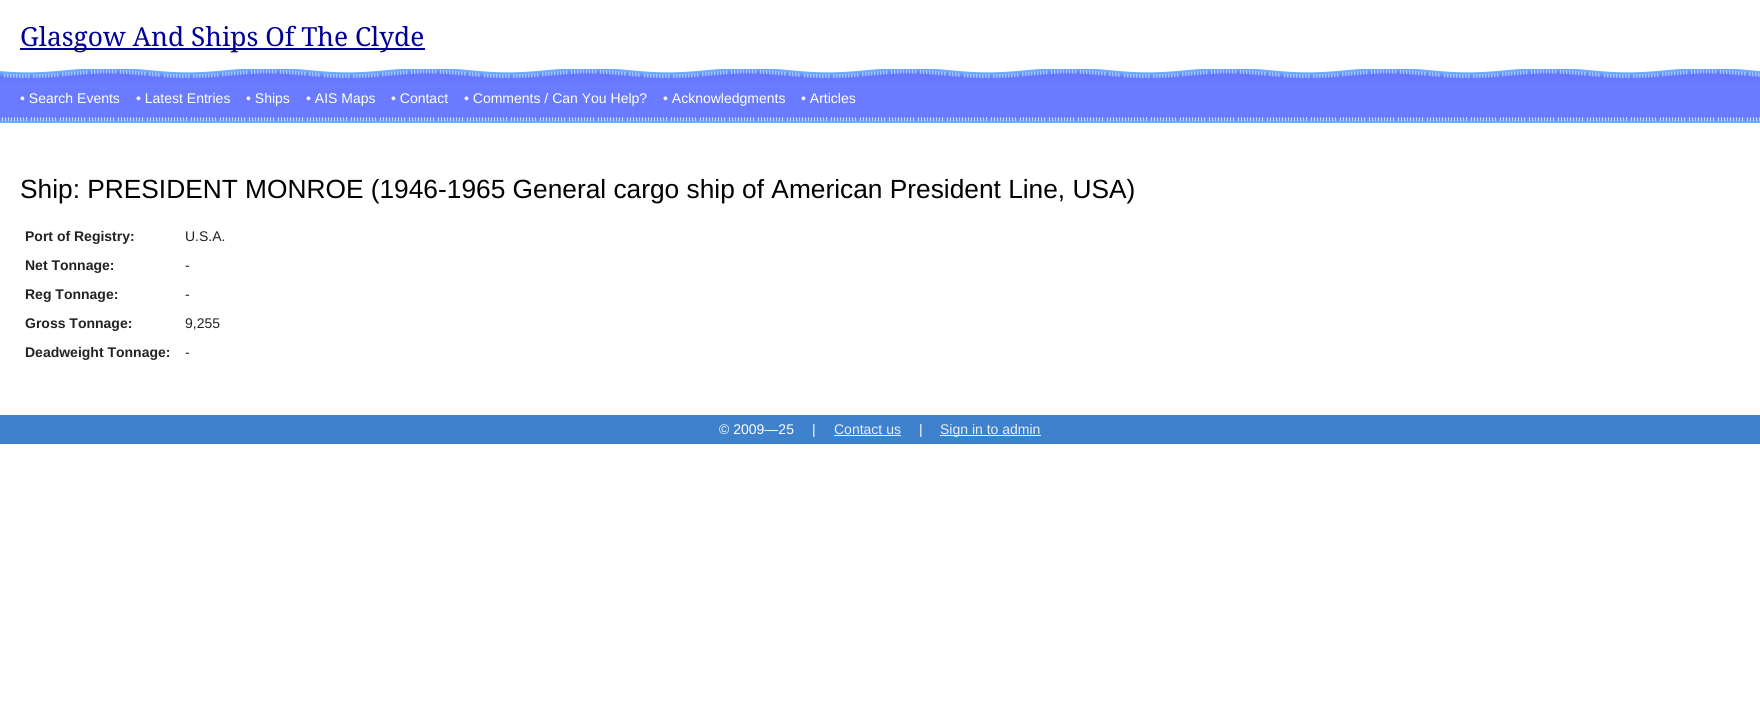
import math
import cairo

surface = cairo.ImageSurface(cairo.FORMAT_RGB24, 1760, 709)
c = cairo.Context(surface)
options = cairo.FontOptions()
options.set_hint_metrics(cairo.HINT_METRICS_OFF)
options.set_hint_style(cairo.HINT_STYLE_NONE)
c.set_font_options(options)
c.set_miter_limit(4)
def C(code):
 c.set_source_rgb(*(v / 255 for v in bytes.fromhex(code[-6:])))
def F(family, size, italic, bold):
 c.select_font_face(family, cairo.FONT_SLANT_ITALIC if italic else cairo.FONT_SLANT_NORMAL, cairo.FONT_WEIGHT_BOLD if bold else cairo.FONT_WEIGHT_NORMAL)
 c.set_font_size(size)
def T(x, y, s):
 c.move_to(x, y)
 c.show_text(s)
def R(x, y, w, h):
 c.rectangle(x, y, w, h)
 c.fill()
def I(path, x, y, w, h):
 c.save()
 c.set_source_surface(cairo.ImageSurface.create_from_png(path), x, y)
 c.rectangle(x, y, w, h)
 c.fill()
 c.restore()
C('ffffff')
c.paint()
C('000099')
R(20,48,405,2)
F('Droid Serif',26.3,0,0)
T(20,46,'Glasgow And Ships Of The Clyde')
I('1.png',0,69,1760,16)
C('6b7bff')
R(0,85,1760,31)
F('Liberation Sans',14,0,0)
C('ffffff')
T(20,103,'• Search Events')
T(136,103,'• Latest Entries')
T(246,103,'• Ships')
T(306,103,'• AIS Maps')
T(391,103,'• Contact')
T(464,103,'• Comments / Can You Help?')
T(663,103,'• Acknowledgments')
T(801,103,'• Articles')
I('2.png',0,116,1760,7)
F('Liberation Sans',26.3,0,0)
C('000000')
T(20,198,'Ship: PRESIDENT MONROE (1946-1965 General cargo ship of American President Line, USA)')
F('Liberation Sans',14,0,1)
C('222222')
T(25,241,'Port of Registry:')
F('Liberation Sans',14,0,0)
T(185,241,'U.S.A.')
F('Liberation Sans',14,0,1)
T(25,270,'Net Tonnage:')
F('Liberation Sans',14,0,0)
T(185,270,'-')
F('Liberation Sans',14,0,1)
T(25,299,'Reg Tonnage:')
F('Liberation Sans',14,0,0)
T(185,299,'-')
F('Liberation Sans',14,0,1)
T(25,328,'Gross Tonnage:')
F('Liberation Sans',14,0,0)
T(185,328,'9,255')
F('Liberation Sans',14,0,1)
T(25,357,'Deadweight Tonnage:')
F('Liberation Sans',14,0,0)
T(185,357,'-')
C('3e81cd')
R(0,415,1760,29)
C('ffffff')
T(719,434,'© 2009—25')
T(812,434,'|')
C('eeeeee')
T(834,434,'Contact us')
R(834,435,67,1)
C('ffffff')
T(919,434,'|')
C('eeeeee')
R(940,435,101,1)
T(940,434,'Sign in to admin')
surface.write_to_png('o.png')
